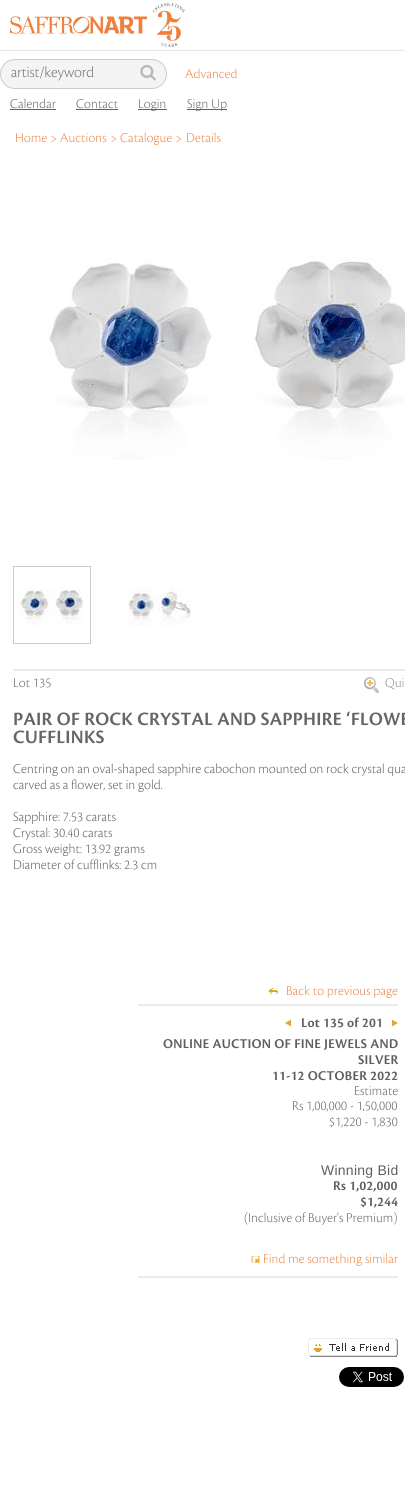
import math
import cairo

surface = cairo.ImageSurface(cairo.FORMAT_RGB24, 405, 1490)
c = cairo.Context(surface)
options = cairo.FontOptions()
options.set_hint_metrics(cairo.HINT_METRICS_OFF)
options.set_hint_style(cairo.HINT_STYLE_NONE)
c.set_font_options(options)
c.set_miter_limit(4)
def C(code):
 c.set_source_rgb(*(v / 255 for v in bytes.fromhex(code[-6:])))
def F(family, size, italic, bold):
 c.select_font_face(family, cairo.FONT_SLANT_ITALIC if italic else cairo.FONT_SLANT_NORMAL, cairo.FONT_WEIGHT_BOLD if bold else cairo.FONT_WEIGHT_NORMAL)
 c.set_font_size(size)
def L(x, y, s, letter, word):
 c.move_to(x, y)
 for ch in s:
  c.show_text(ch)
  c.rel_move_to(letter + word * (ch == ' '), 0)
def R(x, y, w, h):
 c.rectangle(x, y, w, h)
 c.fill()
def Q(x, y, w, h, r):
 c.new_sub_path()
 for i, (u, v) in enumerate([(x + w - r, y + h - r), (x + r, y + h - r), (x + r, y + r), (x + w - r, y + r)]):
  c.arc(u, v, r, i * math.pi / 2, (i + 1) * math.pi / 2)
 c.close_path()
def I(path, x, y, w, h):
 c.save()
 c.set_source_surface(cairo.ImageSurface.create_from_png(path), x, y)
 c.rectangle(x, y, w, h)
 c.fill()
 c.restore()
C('ffffff')
c.paint()
C('e7e7e7')
R(0,50,405,1)
I('1.png',10,3,175,44)
C('f4f4f4')
Q(.5,59.5,166,29,14.5)
c.fill_preserve()
C('cccccc')
c.set_line_width(1)
c.stroke()
I('2.png',11,66,83,15)
I('3.png',140,65,16,16)
I('4.png',185,68,52,11)
I('5.png',10,98,46,11)
C('616161')
R(10,109,46,1)
I('6.png',76,99,42,10)
R(76,109,42,1)
R(138,109,29,1)
I('7.png',139,99,27,13)
R(187,109,40,1)
I('8.png',187,99,40,13)
I('9.png',15,133,32,10)
I('10.png',51,135,6,7)
I('11.png',60,133,47,10)
I('10.png',111,135,6,7)
I('12.png',120,132,52,14)
I('10.png',176,135,6,7)
I('13.png',187,132,34,11)
I('14.png',47,257,358,203)
c.rectangle(13.5,566.5,77,77)
C('cccccc')
c.stroke()
I('15.png',19,588,64,37)
I('16.png',127,588,64,38)
C('ebebe9')
R(13,669,392,2)
I('17.png',14,678,37,10)
I('18.png',364,677,15,16)
I('19.png',385,678,20,12)
I('20.png',14,711,391,15)
I('21.png',13,730,91,14)
I('22.png',13,763,392,14)
I('23.png',13,779,150,14)
I('24.png',13,811,103,13)
I('25.png',13,827,100,13)
I('26.png',13,843,132,14)
I('27.png',14,859,143,11)
I('28.png',268,987,11,8)
I('29.png',287,985,111,14)
R(138,1004,260,2)
I('30.png',285,1019,6,8)
I('31.png',302,1018,18,10)
I('32.png',324,1018,20,10)
I('33.png',347,1017,12,11)
I('34.png',362,1018,19,10)
I('35.png',392,1019,6,8)
I('36.png',163,1039,235,11)
I('37.png',358,1055,41,10)
I('38.png',273,1071,125,10)
I('39.png',355,1086,43,10)
I('40.png',293,1101,104,11)
I('41.png',329,1116,69,12)
F('Liberation Sans',14,0,0)
C('5f5f5f')
L(321,1175,'Winning Bid',.25,0)
I('42.png',333,1181,64,11)
I('43.png',360,1196,38,12)
I('44.png',244,1212,153,13)
I('45.png',251,1255,9,8)
I('46.png',264,1253,134,14)
C('ebebe9')
R(138,1276,260,2)
I('47.png',308,1338,90,19)
I('48.png',339,1367,65,20)
surface.write_to_png('o.png')
